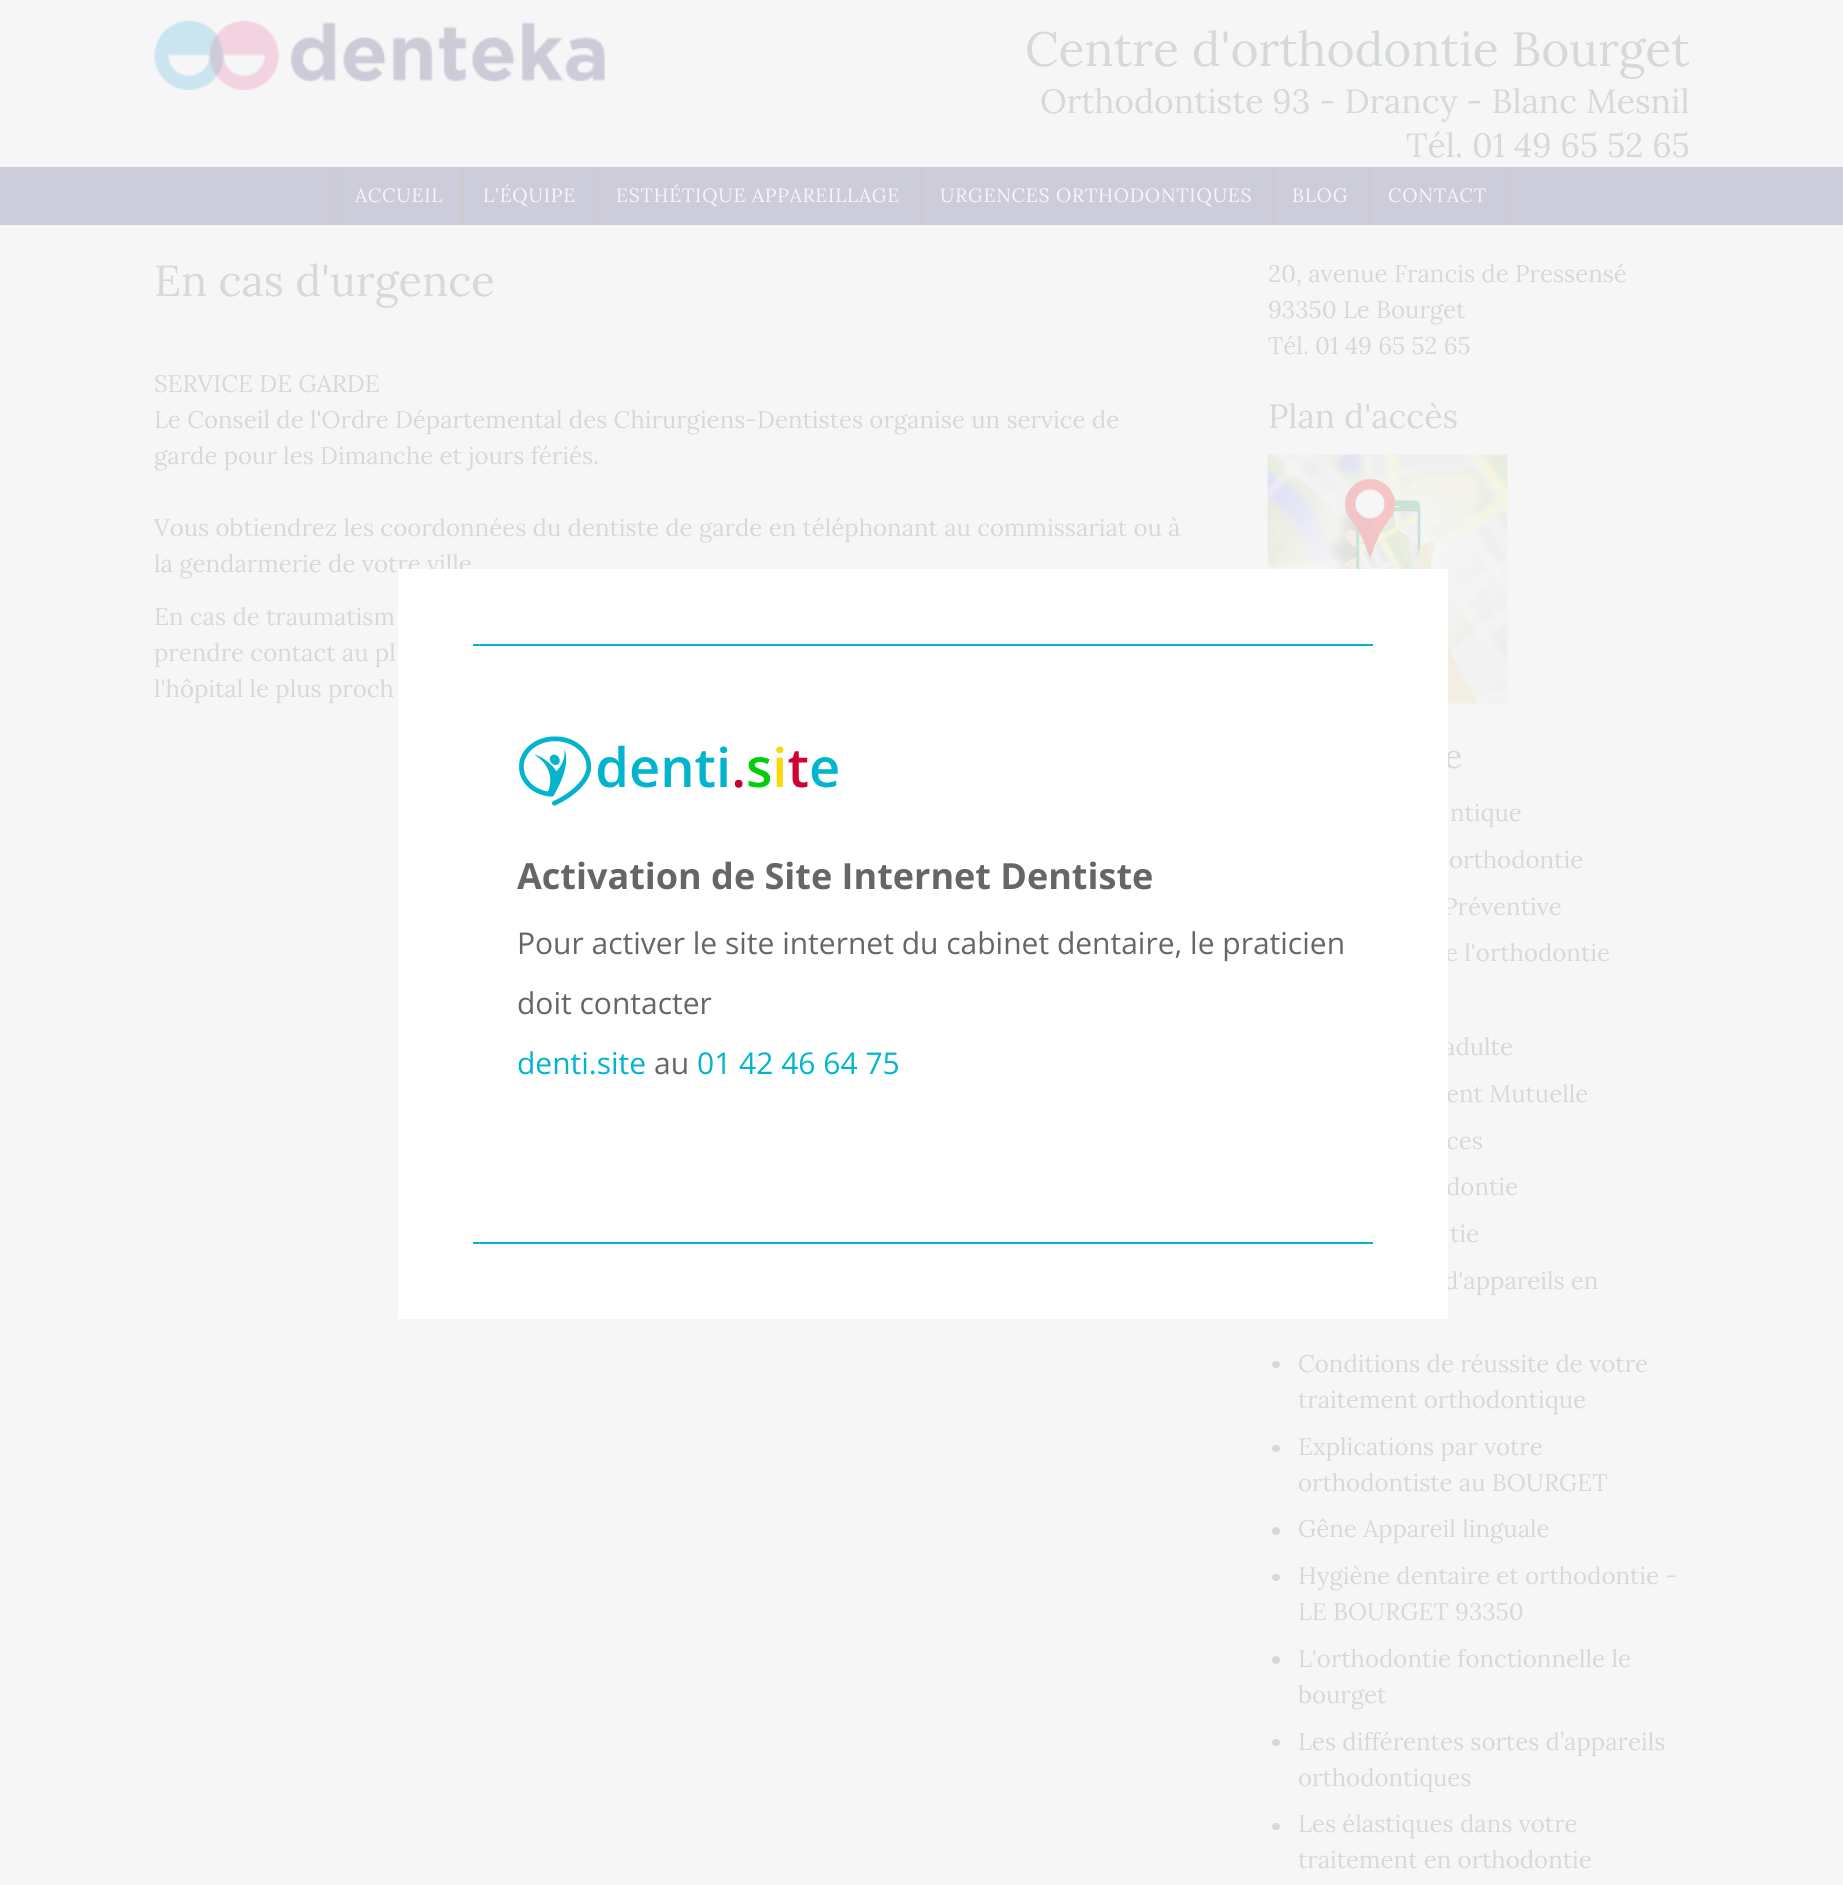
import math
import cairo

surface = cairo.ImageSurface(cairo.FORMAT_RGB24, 1843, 1885)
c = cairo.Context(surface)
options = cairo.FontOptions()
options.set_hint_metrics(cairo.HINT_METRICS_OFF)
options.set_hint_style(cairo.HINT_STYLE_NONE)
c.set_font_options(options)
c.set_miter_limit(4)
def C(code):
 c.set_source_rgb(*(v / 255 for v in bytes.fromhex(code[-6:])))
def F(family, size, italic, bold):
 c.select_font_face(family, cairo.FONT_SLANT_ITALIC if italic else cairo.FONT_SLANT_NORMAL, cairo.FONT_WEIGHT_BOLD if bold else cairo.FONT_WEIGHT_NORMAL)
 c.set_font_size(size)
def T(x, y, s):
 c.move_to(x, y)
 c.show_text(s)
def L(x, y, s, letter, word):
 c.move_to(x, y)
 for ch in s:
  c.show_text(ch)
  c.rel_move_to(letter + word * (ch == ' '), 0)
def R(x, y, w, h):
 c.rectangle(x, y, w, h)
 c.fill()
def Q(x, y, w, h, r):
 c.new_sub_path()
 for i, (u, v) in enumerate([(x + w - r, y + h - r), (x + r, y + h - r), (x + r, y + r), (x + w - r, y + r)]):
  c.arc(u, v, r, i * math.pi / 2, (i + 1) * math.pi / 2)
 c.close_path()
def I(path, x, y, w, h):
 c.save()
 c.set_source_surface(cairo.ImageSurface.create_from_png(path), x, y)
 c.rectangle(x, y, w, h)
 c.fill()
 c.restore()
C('f6f6f6')
c.paint()
I('1.png',154,21,451,69)
F('Lora',48,0,0)
C('d5d9db')
T(1025,66,'Centre d\'orthodontie Bourget')
F('Lora',33.6,0,0)
T(1040,113,'Orthodontiste 93 - Drancy - Blanc Mesnil')
T(1406,157,'Tél.')
T(1472,157,'01 49 65 52 65')
C('ccccda')
R(0,167,1843,58)
C('cccccc')
R(462,167,2,58)
R(335,167,2,58)
F('Lora',19.25,0,0)
C('f6f6f6')
L(355,202,'ACCUEIL',.75,0)
C('cccccc')
R(596,167,2,58)
C('f6f6f6')
L(483,202,'L\'ÉQUIPE',.75,0)
C('cccccc')
R(920,167,2,58)
C('f6f6f6')
L(616,202,'ESTHÉTIQUE APPAREILLAGE',.75,0)
C('cccccc')
R(1272,167,2,58)
C('f6f6f6')
L(940,202,'URGENCES ORTHODONTIQUES',.75,0)
C('cccccc')
R(1368,167,2,58)
C('f6f6f6')
L(1292,202,'BLOG',.75,0)
C('cccccc')
R(1506,167,2,58)
C('f6f6f6')
L(1388,202,'CONTACT',.75,0)
F('Lora',43.25,0,0)
C('d5d9db')
T(154,296,'En cas d\'urgence')
F('Lora',24,0,0)
T(154,392,'SERVICE DE GARDE')
T(154,428,'Le Conseil de l\'Ordre Départemental des Chirurgiens-Dentistes organise un service de')
T(154,464,'garde pour les Dimanche et jours fériés.')
T(154,536,'Vous obtiendrez les coordonnées du dentiste de garde en téléphonant au commissariat ou à')
T(154,572,'la gendarmerie de votre ville')
T(154,625,'En cas de traumatism')
T(154,661,'prendre contact au pl')
T(154,697,'l\'hôpital le plus proch')
T(1268,282,'20, avenue Francis de Pressensé')
T(1268,318,'93350 Le Bourget')
T(1268,354,'Tél.')
T(1315,354,'01 49 65 52 65')
F('Lora',33.6,0,0)
T(1268,428,'Plan d\'accès')
I('2.png',1267,454,241,250)
T(1444,768,'e')
F('Lora',24,0,0)
T(1450,821,'ntique')
T(1449,868,'orthodontie')
T(1443,915,'Préventive')
T(1445,961,'e l\'orthodontie')
T(1443,1055,'adulte')
T(1446,1102,'ent Mutuelle')
T(1446,1149,'ces')
T(1446,1195,'dontie')
T(1450,1242,'tie')
T(1444,1289,'d\'appareils en')
C('d8d8d8')
Q(1272,1361,8,7,3.5)
c.fill()
C('d5d9db')
T(1298,1372,'Conditions de réussite de votre')
T(1298,1408,'traitement orthodontique')
C('d8d8d8')
Q(1272,1445,8,7,3.5)
c.fill()
C('d5d9db')
T(1298,1455,'Explications par votre')
T(1298,1491,'orthodontiste au BOURGET')
C('d8d8d8')
c.new_path()
c.arc(1276,1531,4,0,2 * math.pi)
c.fill()
C('d5d9db')
T(1298,1537,'Gêne Appareil linguale')
C('d8d8d8')
Q(1272,1574,8,7,3.5)
c.fill()
C('d5d9db')
T(1298,1584,'Hygiène dentaire et orthodontie -')
T(1298,1620,'LE BOURGET 93350')
C('d8d8d8')
c.new_path()
c.arc(1276,1660,4,0,2 * math.pi)
c.fill()
C('d5d9db')
T(1298,1667,'L\'orthodontie fonctionnelle le')
T(1298,1703,'bourget')
C('d8d8d8')
Q(1272,1739,8,7,3.5)
c.fill()
C('d5d9db')
T(1298,1750,'Les différentes sortes d’appareils')
T(1298,1786,'orthodontiques')
C('d8d8d8')
Q(1272,1823,8,7,3.5)
c.fill()
C('d5d9db')
T(1298,1832,'Les élastiques dans votre')
T(1298,1868,'traitement en orthodontie')
C('ffffff')
R(398,569,1050,750)
C('02b4ce')
R(473,644,900,2)
R(473,1242,900,2)
I('3.png',519,736,319,70)
F('Open Sans',36,0,1)
C('666666')
T(517,889,'Activation de Site Internet Dentiste')
F('Open Sans',30,0,0)
T(517,954,'Pour activer le site internet du cabinet dentaire, le praticien')
T(517,1014,'doit contacter')
C('02b4ce')
T(517,1074,'denti.site')
C('666666')
T(654,1074,'au')
C('02b4ce')
T(697,1074,'01 42 46 64 75')
surface.write_to_png('o.png')
